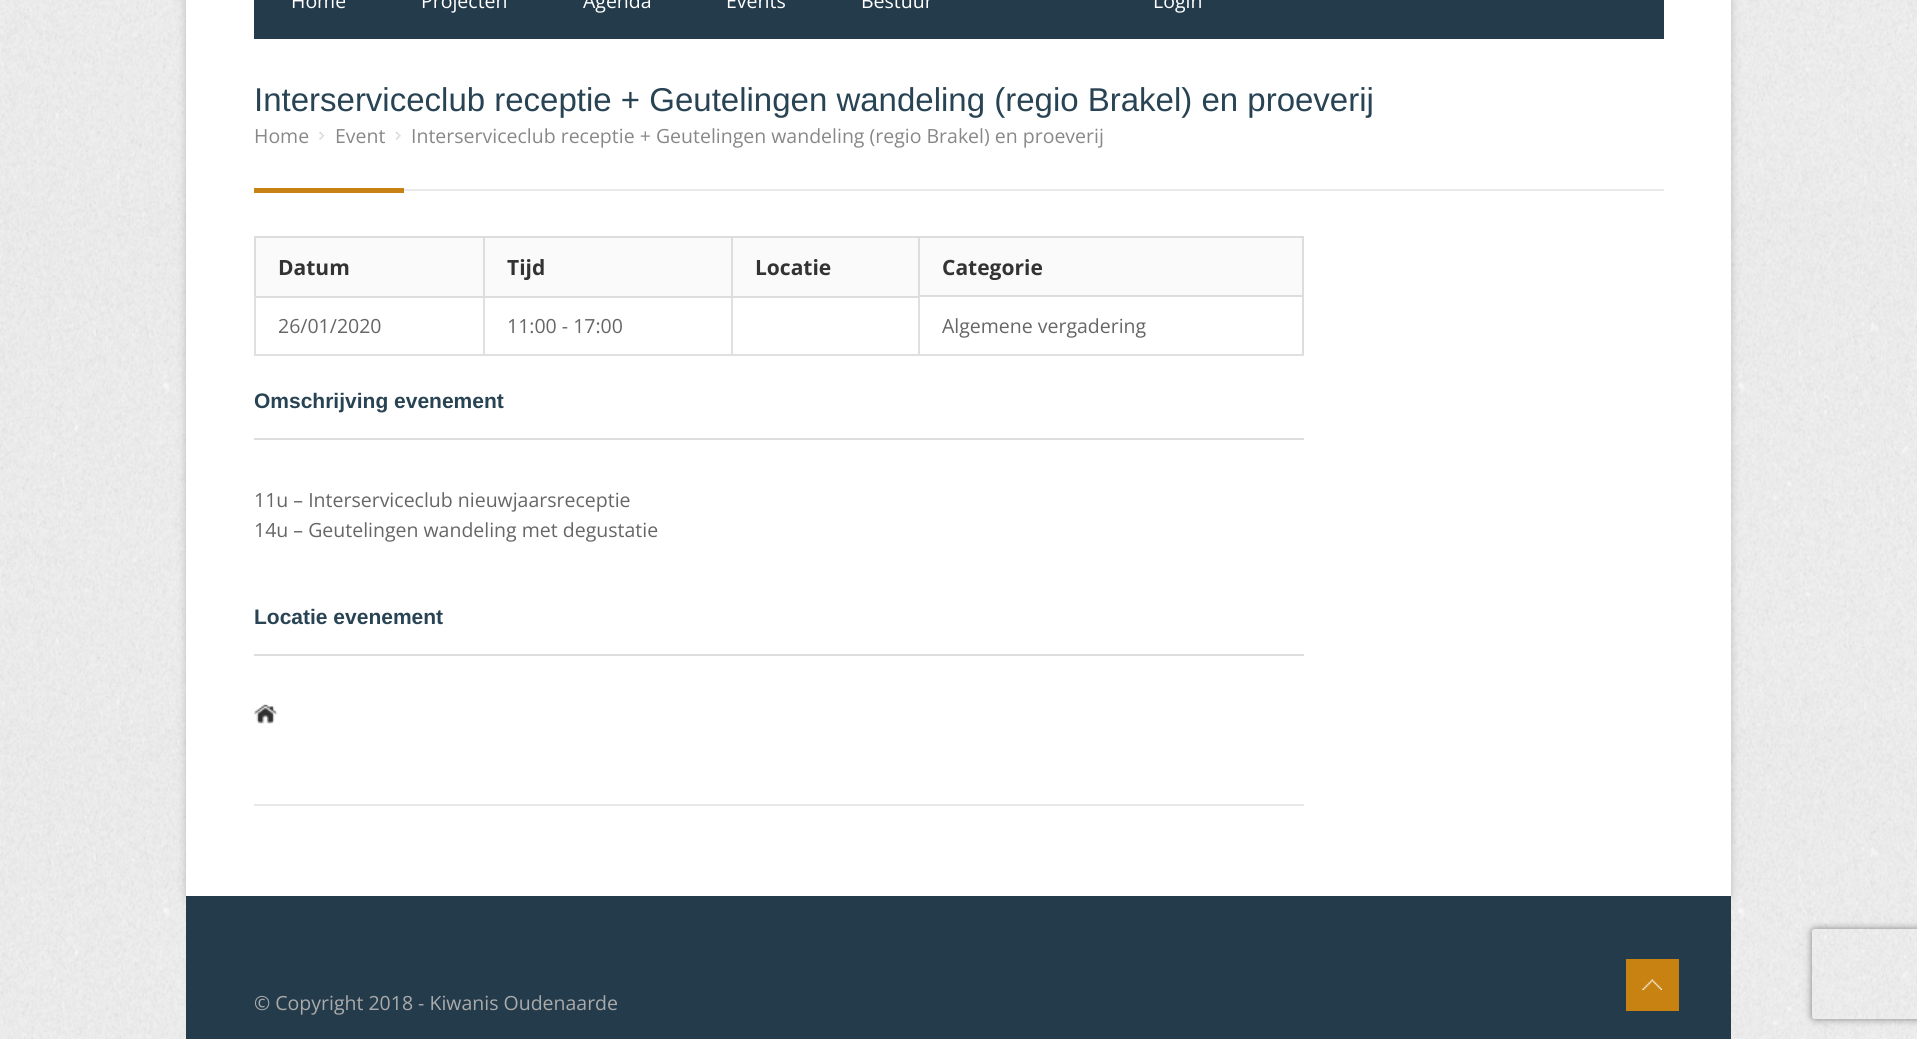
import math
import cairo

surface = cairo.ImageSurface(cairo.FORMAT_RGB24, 1917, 1039)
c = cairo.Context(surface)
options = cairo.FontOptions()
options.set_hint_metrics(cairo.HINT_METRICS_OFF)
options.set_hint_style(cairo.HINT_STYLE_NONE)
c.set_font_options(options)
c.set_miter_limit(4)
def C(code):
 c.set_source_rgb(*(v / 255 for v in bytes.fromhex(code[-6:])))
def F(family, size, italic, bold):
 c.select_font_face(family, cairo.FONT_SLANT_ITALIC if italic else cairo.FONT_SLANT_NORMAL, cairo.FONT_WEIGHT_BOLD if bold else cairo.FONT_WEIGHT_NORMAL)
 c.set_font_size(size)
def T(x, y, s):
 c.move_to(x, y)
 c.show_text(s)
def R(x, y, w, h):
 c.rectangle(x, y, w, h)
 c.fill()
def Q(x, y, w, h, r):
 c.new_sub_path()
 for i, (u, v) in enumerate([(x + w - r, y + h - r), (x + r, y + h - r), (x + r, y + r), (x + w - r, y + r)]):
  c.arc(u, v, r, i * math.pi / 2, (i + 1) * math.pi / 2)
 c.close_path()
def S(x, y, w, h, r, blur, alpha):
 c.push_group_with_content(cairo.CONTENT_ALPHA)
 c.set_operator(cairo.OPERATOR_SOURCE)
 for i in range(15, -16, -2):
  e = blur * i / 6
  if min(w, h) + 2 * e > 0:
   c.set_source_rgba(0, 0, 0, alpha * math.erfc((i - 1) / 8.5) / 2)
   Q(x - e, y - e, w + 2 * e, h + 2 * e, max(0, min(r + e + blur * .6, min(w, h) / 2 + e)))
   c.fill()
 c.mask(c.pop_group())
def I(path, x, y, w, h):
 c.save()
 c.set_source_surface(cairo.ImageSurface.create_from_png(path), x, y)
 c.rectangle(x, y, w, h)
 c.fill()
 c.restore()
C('ffffff')
c.paint()
I('1.png',0,0,1917,1039)
C('000000')
S(186,-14,1545,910,0,4.5,.2)
C('ffffff')
R(186,0,1545,896)
C('243b4b')
R(254,0,1410,39)
F('Open Sans',19.5,0,0)
C('ffffff')
T(291,8,'Home')
T(421,8,'Projecten')
T(583,8,'Agenda')
T(726,8,'Events')
T(861,8,'Bestuur')
T(1153,8,'Login')
C('e9e9e9')
R(404,189,1260,2)
F('Liberation Sans',33,0,0)
C('284354')
T(254,111,'Interserviceclub receptie + Geutelingen wandeling (regio Brakel) en proeverij')
F('Open Sans',19.5,0,0)
C('888888')
T(254,143,'Home')
I('2.png',319,132,5,8)
T(335,143,'Event')
I('3.png',396,132,5,8)
T(411,143,'Interserviceclub receptie + Geutelingen wandeling (regio Brakel) en proeverij')
C('c88212')
R(254,188,150,5)
C('e9e9e9')
R(254,804,1050,2)
C('fafafa')
R(256,238,227,58)
C('dddddd')
R(254,236,664,2)
R(254,296,664,2)
R(254,236,2,61)
F('Open Sans',21,0,1)
C('333333')
T(278,275,'Datum')
C('fafafa')
R(485,238,246,58)
C('dddddd')
R(483,236,2,61)
C('333333')
T(507,275,'Tijd')
C('fafafa')
R(733,238,185,58)
C('dddddd')
R(731,236,2,61)
C('333333')
T(755,275,'Locatie')
C('fafafa')
c.rectangle(919,237,384,59)
c.fill_preserve()
C('dddddd')
c.stroke()
C('333333')
T(942,275,'Categorie')
C('e0e0e0')
R(254,354,664,2)
R(254,297,2,59)
F('Open Sans',19.5,0,0)
C('666666')
T(278,333,'26/01/2020')
C('e0e0e0')
R(483,297,2,59)
C('666666')
T(507,333,'11:00 - 17:00')
C('e0e0e0')
R(731,297,2,59)
C('dddddd')
R(1302,297,2,59)
C('e0e0e0')
R(918,354,386,2)
R(918,297,2,59)
C('666666')
T(942,333,'Algemene vergadering')
F('Liberation Sans',21,0,1)
C('284354')
T(254,408,'Omschrijving evenement')
C('dddddd')
R(254,438,1050,2)
F('Open Sans',19.5,0,0)
C('666666')
T(254,507,'11u – Interserviceclub nieuwjaarsreceptie')
T(254,537,'14u – Geutelingen wandeling met degustatie')
F('Liberation Sans',21,0,1)
C('284354')
T(254,624,'Locatie evenement')
C('dddddd')
R(254,654,1050,2)
I('4.png',253,704,25,20)
C('243b4b')
R(186,896,1545,143)
F('Open Sans',19.5,0,0)
C('aaaaaa')
T(254,1010,'© Copyright 2018 - Kiwanis Oudenaarde')
C('c88212')
R(1626,959,53,52)
I('5.png',1642,979,20,11)
c.save()
c.set_fill_rule(cairo.FILL_RULE_EVEN_ODD)
c.new_path()
c.move_to(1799,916)
c.line_to(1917,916)
c.line_to(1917,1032)
c.line_to(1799,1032)
c.close_path()
c.move_to(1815,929)
c.line_to(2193,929)
c.curve_to(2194.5,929,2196,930.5,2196,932)
c.line_to(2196,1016)
c.curve_to(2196,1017.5,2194.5,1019,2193,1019)
c.line_to(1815,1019)
c.curve_to(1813.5,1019,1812,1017.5,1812,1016)
c.line_to(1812,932)
c.curve_to(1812,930.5,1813.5,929,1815,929)
c.close_path()
c.clip()
C('808080')
S(1812,929,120,90,3,4,1)
c.restore()
surface.write_to_png('o.png')
